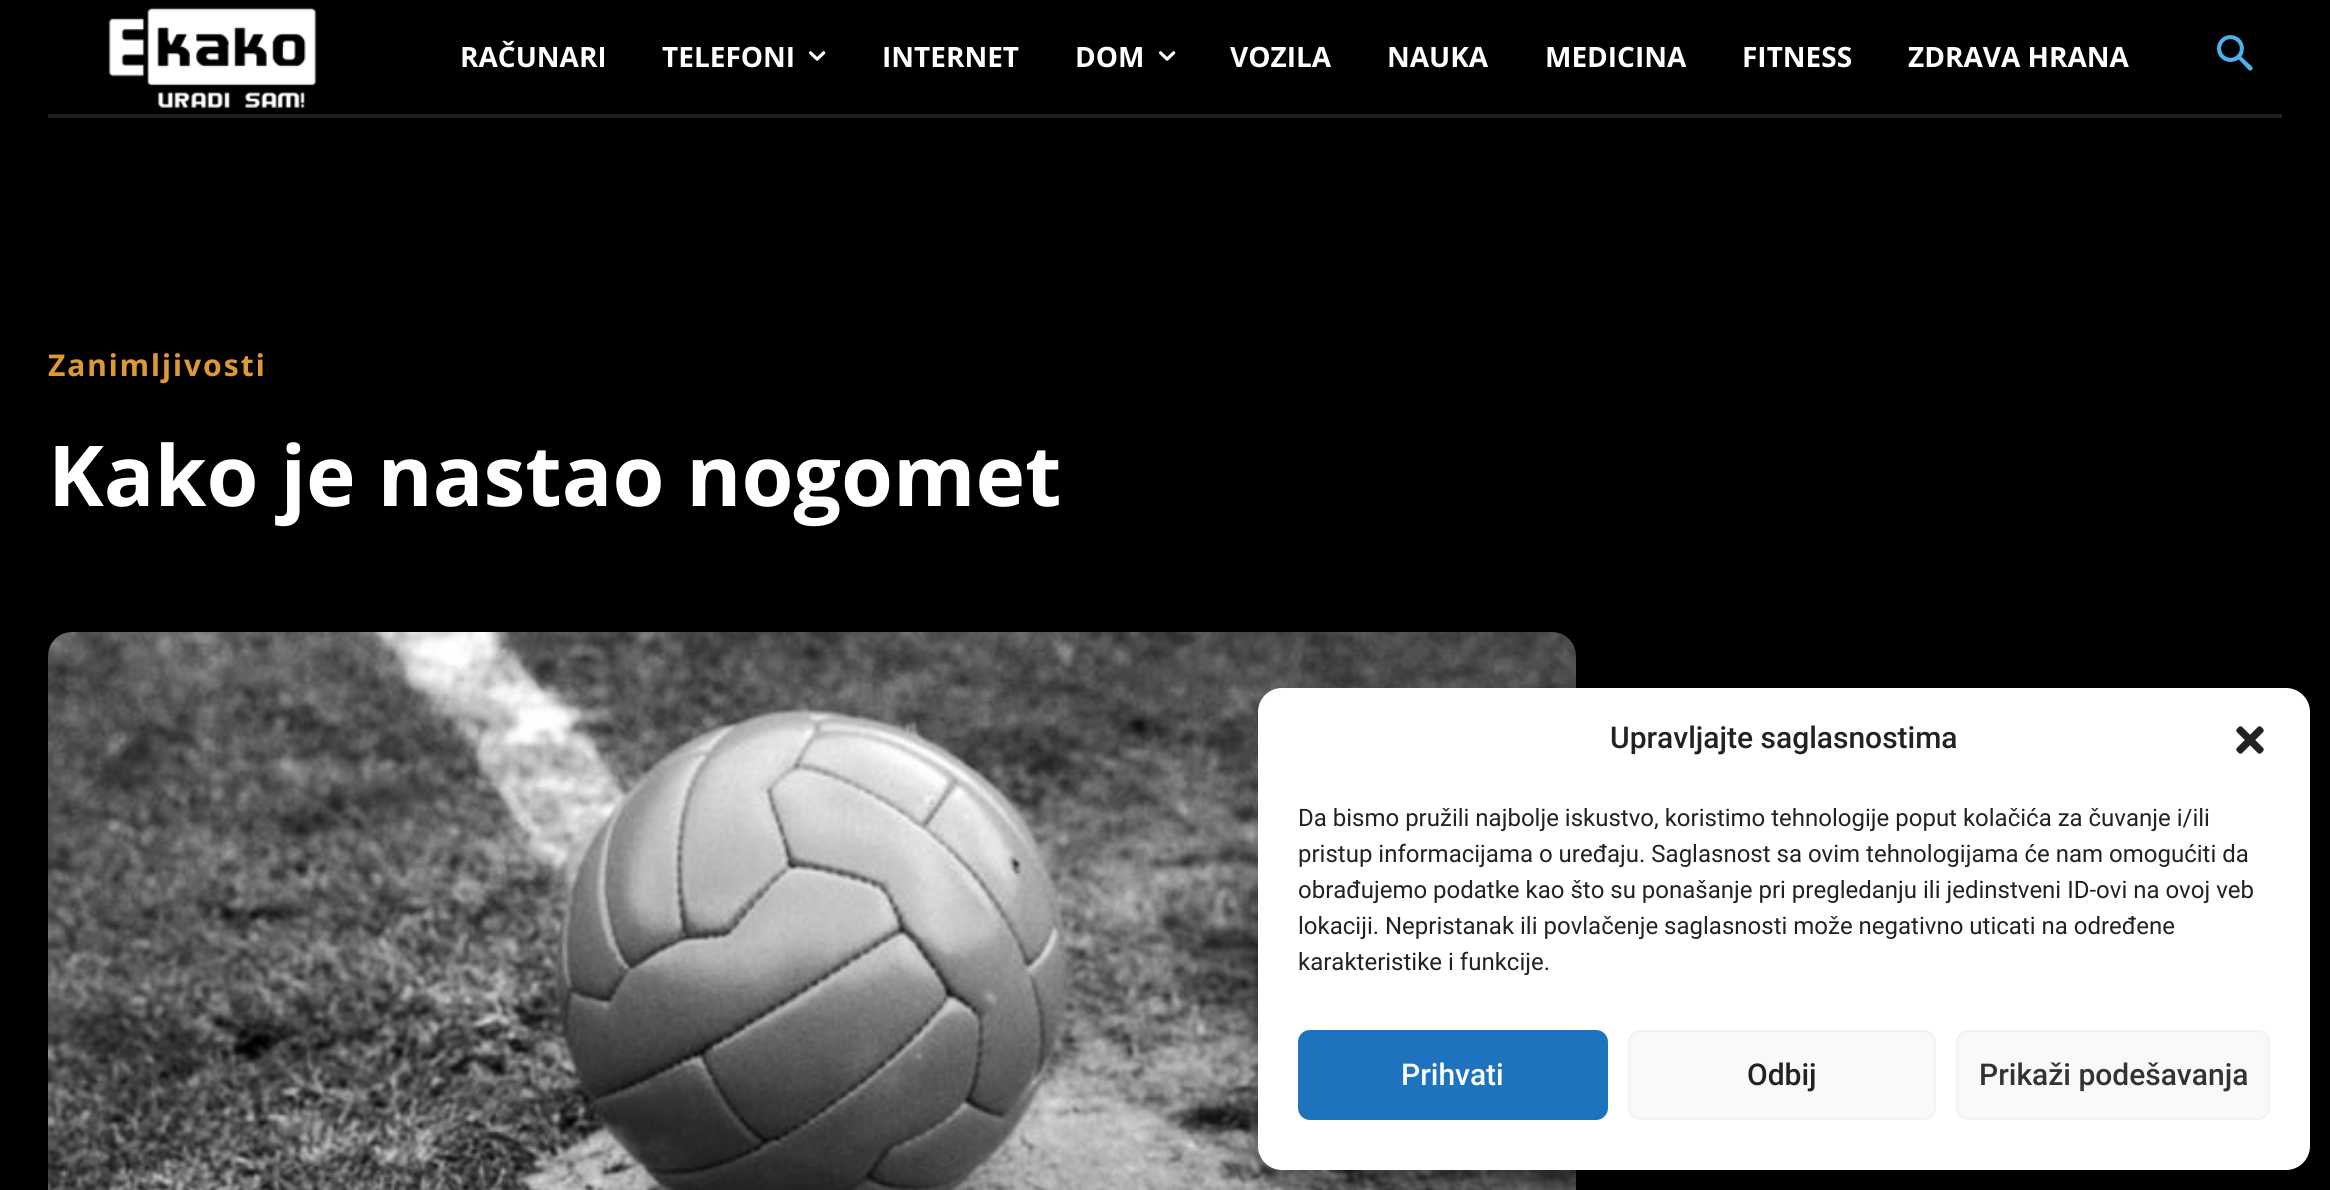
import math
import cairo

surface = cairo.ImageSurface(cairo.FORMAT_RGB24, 2330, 1190)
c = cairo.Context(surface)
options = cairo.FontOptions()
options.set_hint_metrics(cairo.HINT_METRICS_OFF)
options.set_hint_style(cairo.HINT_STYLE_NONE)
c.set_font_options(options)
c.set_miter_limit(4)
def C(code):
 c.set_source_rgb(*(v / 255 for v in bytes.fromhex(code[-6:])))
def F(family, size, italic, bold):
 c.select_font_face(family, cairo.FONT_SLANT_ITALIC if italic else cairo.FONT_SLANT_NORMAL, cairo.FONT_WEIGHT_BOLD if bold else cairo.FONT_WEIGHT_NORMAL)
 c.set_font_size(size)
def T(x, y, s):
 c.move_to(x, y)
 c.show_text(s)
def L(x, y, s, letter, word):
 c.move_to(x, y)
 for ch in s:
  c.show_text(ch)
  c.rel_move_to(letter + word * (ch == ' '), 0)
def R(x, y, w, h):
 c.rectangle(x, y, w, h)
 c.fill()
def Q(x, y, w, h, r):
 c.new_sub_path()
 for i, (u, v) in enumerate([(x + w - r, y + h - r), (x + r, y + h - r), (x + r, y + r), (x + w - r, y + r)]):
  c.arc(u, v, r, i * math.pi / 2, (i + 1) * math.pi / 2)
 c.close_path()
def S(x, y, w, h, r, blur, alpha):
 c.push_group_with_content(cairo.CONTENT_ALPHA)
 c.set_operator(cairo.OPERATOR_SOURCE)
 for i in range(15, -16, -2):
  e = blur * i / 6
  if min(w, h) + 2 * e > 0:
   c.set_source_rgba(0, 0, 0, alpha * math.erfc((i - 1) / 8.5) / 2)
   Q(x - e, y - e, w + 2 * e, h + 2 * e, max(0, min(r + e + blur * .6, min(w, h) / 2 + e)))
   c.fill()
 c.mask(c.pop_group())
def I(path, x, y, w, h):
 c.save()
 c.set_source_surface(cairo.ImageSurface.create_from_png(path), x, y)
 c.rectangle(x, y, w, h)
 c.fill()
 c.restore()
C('000000')
c.paint()
I('1.png',108,7,209,101)
F('Open Sans',28,0,1)
C('ffffff')
T(460,67,'RAČUNARI')
T(662,67,'TELEFONI')
I('2.png',809,51,17,10)
T(882,67,'INTERNET')
T(1075,67,'DOM')
I('2.png',1159,51,17,10)
T(1230,67,'VOZILA')
T(1387,67,'NAUKA')
T(1545,67,'MEDICINA')
T(1742,67,'FITNESS')
T(1908,67,'ZDRAVA HRANA')
I('3.png',2217,35,36,36)
C('1f1e1e')
R(48,114,2234,4)
F('Noto Sans',30,0,1)
C('dd9933')
L(48,376,'Zanimljivosti',2,0)
F('Open Sans',84,0,1)
C('ffffff')
T(48,506,'Kako je nastao nogomet')
I('4.png',48,632,1528,558)
C('000000')
S(1258,700,1052,482,24,6,.23)
S(1258,708,1052,482,24,20,.19)
C('ffffff')
Q(1258,688,1052,482,24)
c.fill()
F('Roboto Medium',30,0,0)
C('222222')
T(1610,748,'Upravljajte saglasnostima')
I('5.png',2236,726,28,28)
F('Roboto',24,0,0)
T(1298,826,'Da bismo pružili najbolje iskustvo, koristimo tehnologije poput kolačića za čuvanje i/ili')
T(1298,862,'pristup informacijama o uređaju. Saglasnost sa ovim tehnologijama će nam omogućiti da')
T(1298,898,'obrađujemo podatke kao što su ponašanje pri pregledanju ili jedinstveni ID-ovi na ovoj veb')
T(1298,934,'lokaciji. Nepristanak ili povlačenje saglasnosti može negativno uticati na određene')
T(1298,970,'karakteristike i funkcije.')
C('1e73be')
Q(1299,1031,308,88,11)
c.fill_preserve()
c.stroke()
F('Roboto Medium',30,0,0)
C('ffffff')
T(1401,1085,'Prihvati')
C('f9f9f9')
Q(1629,1031,306,88,11)
c.fill_preserve()
C('f2f2f2')
c.stroke()
C('222222')
T(1747,1085,'Odbij')
C('f9f9f9')
Q(1957,1031,312,88,11)
c.fill_preserve()
C('f2f2f2')
c.stroke()
C('333333')
T(1979,1085,'Prikaži podešavanja')
surface.write_to_png('o.png')
